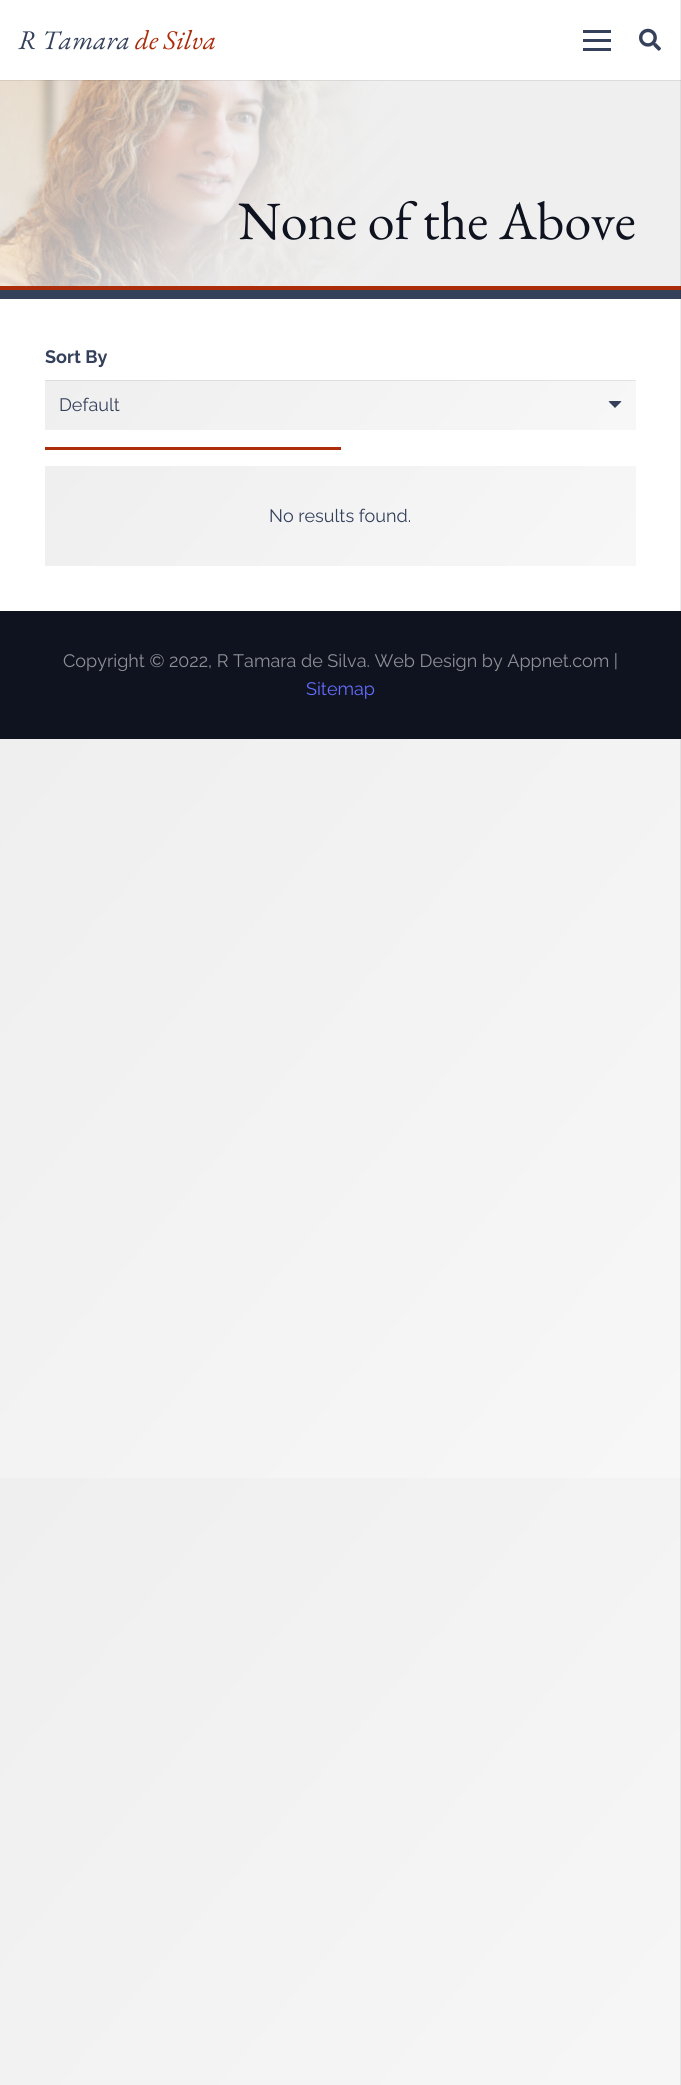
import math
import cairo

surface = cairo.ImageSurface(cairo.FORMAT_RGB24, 681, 2085)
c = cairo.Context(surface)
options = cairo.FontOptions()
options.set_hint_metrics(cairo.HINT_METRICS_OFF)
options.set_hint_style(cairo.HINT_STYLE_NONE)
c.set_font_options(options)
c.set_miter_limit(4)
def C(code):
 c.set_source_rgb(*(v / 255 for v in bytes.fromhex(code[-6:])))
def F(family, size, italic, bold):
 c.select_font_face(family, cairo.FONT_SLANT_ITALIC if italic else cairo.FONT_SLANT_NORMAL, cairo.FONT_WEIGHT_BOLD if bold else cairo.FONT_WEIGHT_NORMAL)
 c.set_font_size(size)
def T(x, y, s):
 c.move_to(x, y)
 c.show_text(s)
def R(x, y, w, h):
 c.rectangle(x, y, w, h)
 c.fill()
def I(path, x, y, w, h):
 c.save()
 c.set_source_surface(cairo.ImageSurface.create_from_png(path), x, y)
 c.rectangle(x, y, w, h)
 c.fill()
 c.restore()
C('ffffff')
c.paint()
gradient = cairo.LinearGradient(-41,788,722,1429)
gradient.add_color_stop_rgba(0,0.937,0.937,0.937,1)
gradient.add_color_stop_rgba(1,0.969,0.969,0.969,1)
c.set_source(gradient)
R(0,739,681,739)
gradient = cairo.LinearGradient(-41,1527,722,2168)
gradient.add_color_stop_rgba(0,0.937,0.937,0.937,1)
gradient.add_color_stop_rgba(1,0.969,0.969,0.969,1)
c.set_source(gradient)
R(0,1478,681,607)
C('efefef')
R(400,80,281,206)
I('2.png',0,80,400,206)
gradient = cairo.LinearGradient(96,-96,585,394)
gradient.add_color_stop_rgba(0,0.937,0.937,0.937,.35)
gradient.add_color_stop_rgba(.5,0.937,0.937,0.937,.95)
gradient.add_color_stop_rgba(1,0.937,0.937,0.937,1)
c.set_source(gradient)
R(0,80,400,206)
c.set_source_rgba(0,0,0,0.08)
R(0,80,681,1)
F('EB Garamond',27,1,0)
C('35415b')
T(18,49,'R Tamara')
C('ac2b08')
T(135,49,'de Silva')
C('35415b')
R(583,39,28,3)
R(583,30,28,3)
R(583,48,28,3)
C('ac2b08')
R(0,286,681,4)
C('35415b')
R(0,290,681,9)
C('0f131f')
R(0,611,681,128)
c.set_source_rgba(0,0,0,0.08)
R(680,0,1,2085)
I('1.png',639,28,22,23)
F('EB Garamond',54,0,0)
C('0f131f')
T(238,239,'None of the Above')
F('Raleway',18,0,1)
C('35415b')
T(45,363,'Sort By')
gradient = cairo.LinearGradient(155,249,526,561)
gradient.add_color_stop_rgba(0,0.937,0.937,0.937,1)
gradient.add_color_stop_rgba(1,0.969,0.969,0.969,1)
c.set_source(gradient)
R(45,381,591,49)
gradient = cairo.LinearGradient(155,249,526,561)
gradient.add_color_stop_rgba(0,0.863,0.863,0.863,1)
gradient.add_color_stop_rgba(1,0.89,0.89,0.89,1)
c.set_source(gradient)
R(45,380,591,1)
F('Raleway',18,0,0)
C('35415b')
T(59,411,'Default')
c.new_path()
c.move_to(610,401)
c.line_to(608.5,401.5)
c.line_to(615,408)
c.line_to(621.5,401.5)
c.curve_to(621,401,620,401,618.5,401)
c.close_path()
c.fill()
C('ac2b08')
R(45,447,296,3)
gradient = cairo.LinearGradient(142,350,539,682)
gradient.add_color_stop_rgba(0,0.937,0.937,0.937,1)
gradient.add_color_stop_rgba(1,0.969,0.969,0.969,1)
c.set_source(gradient)
R(45,466,591,100)
C('35415b')
T(269,522,'No results found.')
C('8d9096')
T(63,667,'Copyright © 2022, R Tamara de Silva. Web Design by Appnet.com |')
C('646cfd')
T(306,695,'Sitemap')
surface.write_to_png('o.png')
